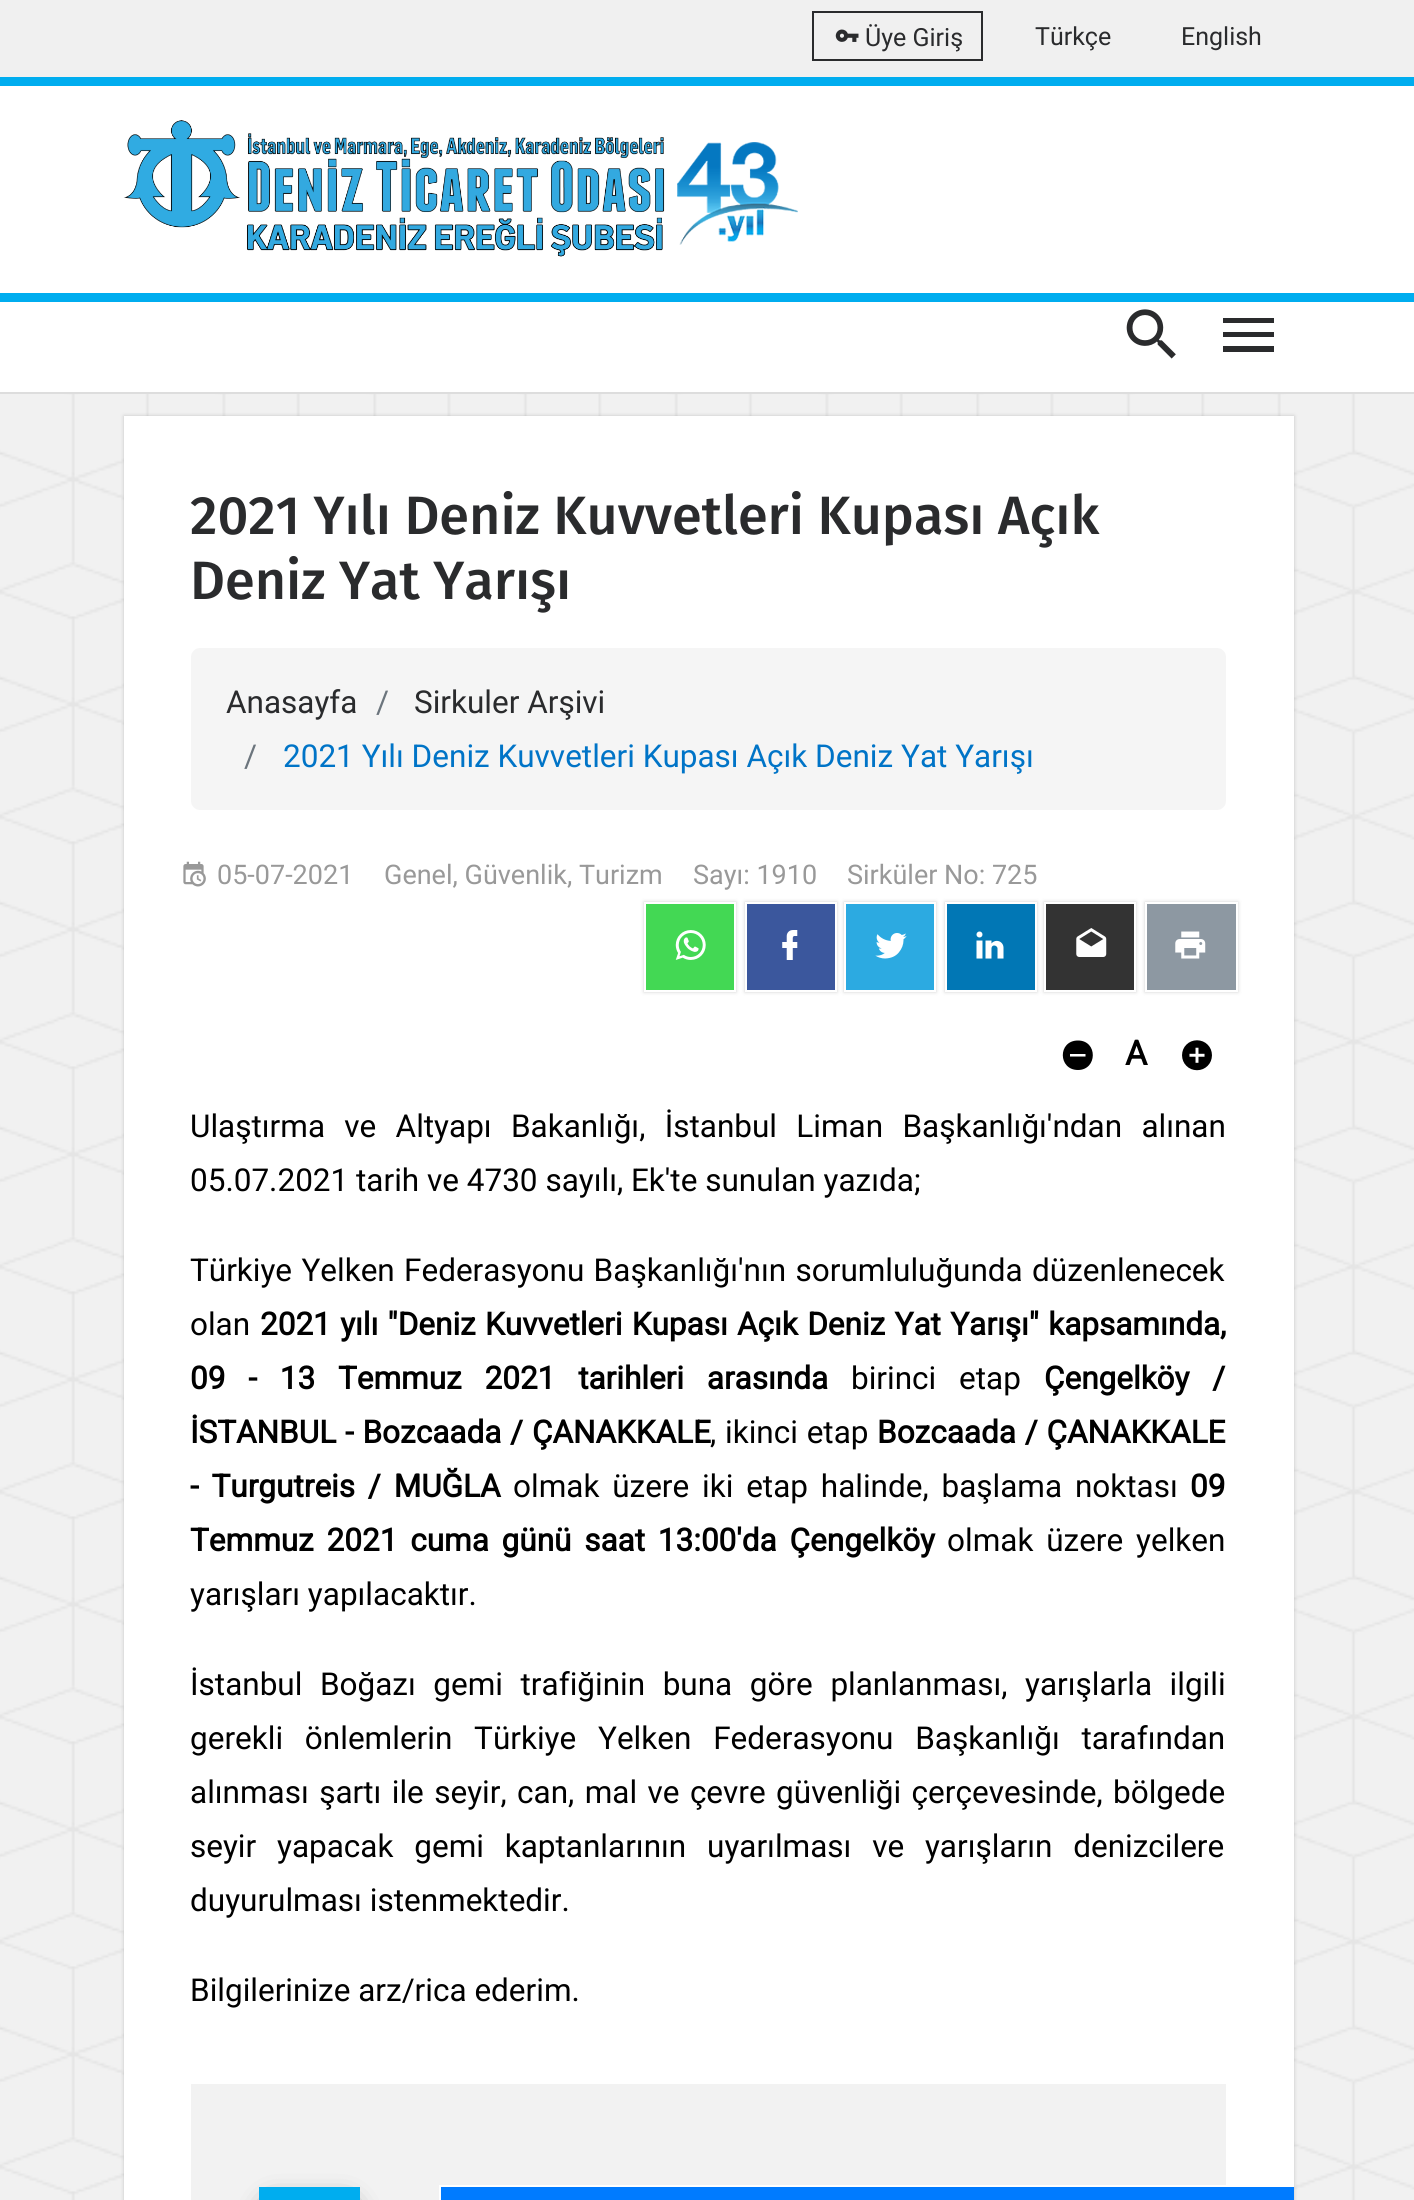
import math
import cairo

surface = cairo.ImageSurface(cairo.FORMAT_RGB24, 1414, 2200)
c = cairo.Context(surface)
options = cairo.FontOptions()
options.set_hint_metrics(cairo.HINT_METRICS_OFF)
options.set_hint_style(cairo.HINT_STYLE_NONE)
c.set_font_options(options)
c.set_miter_limit(4)
def C(code):
 c.set_source_rgb(*(v / 255 for v in bytes.fromhex(code[-6:])))
def F(family, size, italic, bold):
 c.select_font_face(family, cairo.FONT_SLANT_ITALIC if italic else cairo.FONT_SLANT_NORMAL, cairo.FONT_WEIGHT_BOLD if bold else cairo.FONT_WEIGHT_NORMAL)
 c.set_font_size(size)
def T(x, y, s):
 c.move_to(x, y)
 c.show_text(s)
def L(x, y, s, letter, word):
 c.move_to(x, y)
 for ch in s:
  c.show_text(ch)
  c.rel_move_to(letter + word * (ch == ' '), 0)
def R(x, y, w, h):
 c.rectangle(x, y, w, h)
 c.fill()
def Q(x, y, w, h, r):
 c.new_sub_path()
 for i, (u, v) in enumerate([(x + w - r, y + h - r), (x + r, y + h - r), (x + r, y + r), (x + w - r, y + r)]):
  c.arc(u, v, r, i * math.pi / 2, (i + 1) * math.pi / 2)
 c.close_path()
def S(x, y, w, h, r, blur, alpha):
 c.push_group_with_content(cairo.CONTENT_ALPHA)
 c.set_operator(cairo.OPERATOR_SOURCE)
 for i in range(15, -16, -2):
  e = blur * i / 6
  if min(w, h) + 2 * e > 0:
   c.set_source_rgba(0, 0, 0, alpha * math.erfc((i - 1) / 8.5) / 2)
   Q(x - e, y - e, w + 2 * e, h + 2 * e, max(0, min(r + e + blur * .6, min(w, h) / 2 + e)))
   c.fill()
 c.mask(c.pop_group())
def I(path, x, y, w, h):
 c.save()
 c.set_source_surface(cairo.ImageSurface.create_from_png(path), x, y)
 c.rectangle(x, y, w, h)
 c.fill()
 c.restore()
C('f0f0f0')
c.paint()
I('1.png',0,394,1414,1806)
C('00adef')
R(0,77,1414,9)
c.rectangle(813,12,169,48)
C('2a2b2d')
c.stroke()
I('2.png',835,29,24,13)
F('Roboto',25,0,0)
T(865,46,'Üye Giriş')
T(1035,45,'Türkçe')
T(1181,45,'English')
C('ffffff')
R(0,86,1414,207)
I('3.png',123,120,675,137)
R(0,302,1414,90)
C('00adef')
R(0,293,1414,9)
C('dddddd')
R(0,392,1414,2)
I('4.png',1126,309,50,50)
C('2a2b2d')
c.new_path()
c.move_to(1223,318)
c.line_to(1274,318)
c.line_to(1274,323)
c.line_to(1223,323)
c.close_path()
c.move_to(1223,332)
c.line_to(1274,332)
c.line_to(1274,337)
c.line_to(1223,337)
c.close_path()
c.move_to(1223,346)
c.line_to(1274,346)
c.line_to(1274,352)
c.line_to(1223,352)
c.close_path()
c.fill()
C('000000')
S(124,416,1170,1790,0,2,.18)
C('ffffff')
R(124,416,1170,1784)
F('Fira Sans Medium',54,0,0)
C('2a2b2d')
T(190,534,'2021 Yılı Deniz Kuvvetleri Kupası Açık')
T(190,599,'Deniz Yat Yarışı')
C('f5f5f5')
Q(191,648,1035,162,9)
c.fill()
F('Roboto',31.5,0,0)
C('2a2b2d')
T(226,713,'Anasayfa')
C('6c757d')
T(376,713,'/')
C('2a2b2d')
T(414,713,'Sirkuler Arşivi')
C('6c757d')
T(244,767,'/')
C('0074c7')
T(283,767,'2021 Yılı Deniz Kuvvetleri Kupası Açık Deniz Yat Yarışı')
I('5.png',183,861,23,26)
F('Roboto',27,0,0)
C('999999')
T(217,884,'05-07-2021')
T(384,884,'Genel, Güvenlik, Turizm')
T(693,884,'Sayı: 1910')
T(847,884,'Sirküler No: 725')
C('000000')
S(644,902,92,90,0,2,.18)
C('43d854')
c.rectangle(645,903,90,88)
c.fill_preserve()
C('ffffff')
c.stroke()
I('6.png',675,930,31,30)
C('000000')
S(745,902,92,90,0,2,.18)
C('3b579d')
c.rectangle(746,903,90,88)
c.fill_preserve()
C('ffffff')
c.stroke()
I('7.png',782,930,16,30)
C('000000')
S(844,902,92,90,0,2,.18)
C('2caae1')
c.rectangle(845,903,90,88)
c.fill_preserve()
C('ffffff')
c.stroke()
I('8.png',875,933,32,26)
C('000000')
S(945,902,92,90,0,2,.18)
C('0177b5')
c.rectangle(946,903,90,88)
c.fill_preserve()
C('ffffff')
c.stroke()
I('9.png',976,931,28,28)
C('000000')
S(1044,902,92,90,0,2,.18)
C('333333')
c.rectangle(1045,903,90,88)
c.fill_preserve()
C('ffffff')
c.stroke()
I('10.png',1076,928,31,29)
C('000000')
S(1145,902,93,90,0,2,.18)
C('8d98a2')
c.rectangle(1146,903,91,88)
c.fill_preserve()
C('ffffff')
c.stroke()
I('11.png',1175,931,31,28)
C('000000')
c.new_path()
c.move_to(1085.5,1056.5)
c.line_to(1070,1056.5)
c.line_to(1070,1054)
c.line_to(1085.5,1054)
c.close_path()
c.move_to(1078,1040.5)
c.curve_to(1057.5,1040.5,1058,1070,1078,1070)
c.curve_to(1097.5,1070,1098,1040.5,1078,1040.5)
c.close_path()
c.fill()
F('Roboto',34,0,1)
T(1125,1065,'A')
I('12.png',1182,1040,30,31)
F('Roboto',31.5,0,0)
L(190,1137,'Ulaştırma ve Altyapı Bakanlığı, İstanbul Liman Başkanlığı\'ndan alınan',0,11.5)
T(190,1191,'05.07.2021 tarih ve 4730 sayılı, Ek\'te sunulan yazıda;')
L(190,1281,'Türkiye Yelken Federasyonu Başkanlığı\'nın sorumluluğunda düzenlenecek',0,1.5)
T(190,1335,'olan')
F('Roboto',31.5,0,1)
L(260,1335,'2021 yılı "Deniz Kuvvetleri Kupası Açık Deniz Yat Yarışı" kapsamında,',0,1.5)
L(190,1389,'09 - 13 Temmuz 2021 tarihleri arasında',0,15)
F('Roboto',31.5,0,0)
L(851,1389,'birinci etap',0,15)
F('Roboto',31.5,0,1)
L(1044,1389,'Çengelköy /',0,15)
L(190,1443,'İSTANBUL - Bozcaada / ÇANAKKALE',0,1)
F('Roboto',31.5,0,0)
L(710,1443,', ikinci etap',0,1)
F('Roboto',31.5,0,1)
L(877,1443,'Bozcaada / ÇANAKKALE',0,1)
L(190,1497,'- Turgutreis / MUĞLA',0,5)
F('Roboto',31.5,0,0)
L(513,1497,'olmak üzere iki etap halinde, başlama noktası',0,5)
F('Roboto',31.5,0,1)
T(1190,1497,'09')
L(190,1551,'Temmuz 2021 cuma günü saat 13:00\'da Çengelköy',0,5)
F('Roboto',31.5,0,0)
L(947,1551,'olmak üzere yelken',0,5)
T(190,1605,'yarışları yapılacaktır.')
L(190,1695,'İstanbul Boğazı gemi trafiğinin buna göre planlanması, yarışlarla ilgili',0,9.75)
L(190,1749,'gerekli önlemlerin Türkiye Yelken Federasyonu Başkanlığı tarafından',0,14)
L(190,1803,'alınması şartı ile seyir, can, mal ve çevre güvenliği çerçevesinde, bölgede',0,2.6)
L(190,1857,'seyir yapacak gemi kaptanlarının uyarılması ve yarışların denizcilere',0,13)
T(190,1911,'duyurulması istenmektedir.')
T(190,2001,'Bilgilerinize arz/rica ederim.')
C('f2f2f2')
R(191,2084,1035,116)
C('000000')
S(272,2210,75,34,0,14.5,1)
C('00adef')
R(259,2187,101,13)
C('007bff')
R(441,2187,853,13)
c.save()
c.rectangle(124,416,1170,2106)
c.clip()
c.rectangle(440,2186,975,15)
C('ffffff')
c.stroke()
c.restore()
surface.write_to_png('o.png')
